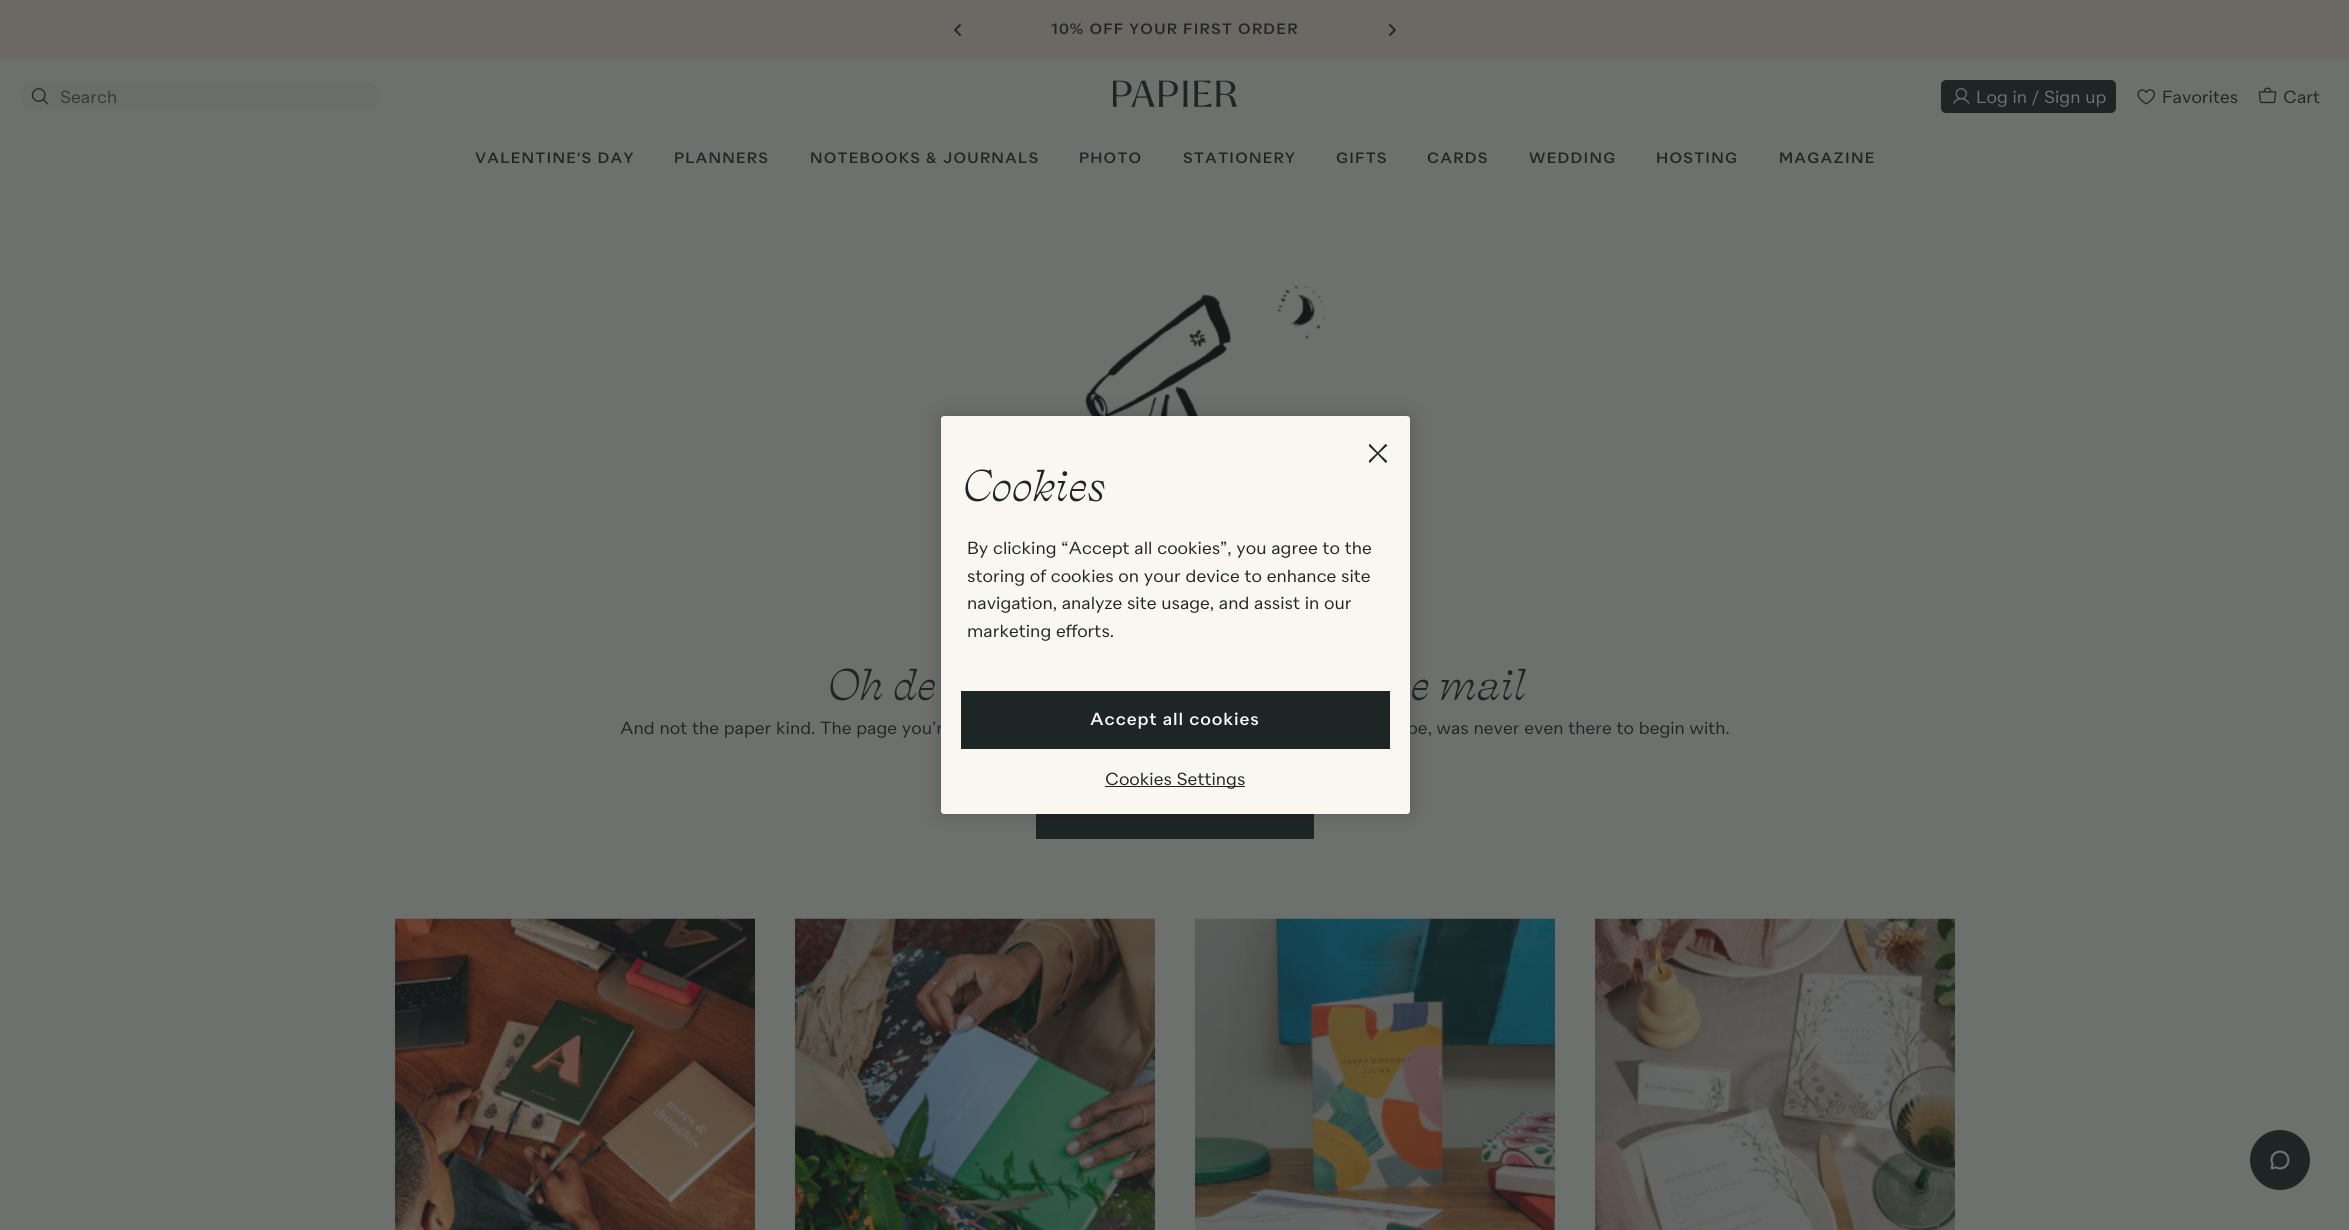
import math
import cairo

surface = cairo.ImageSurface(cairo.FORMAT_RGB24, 2349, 1230)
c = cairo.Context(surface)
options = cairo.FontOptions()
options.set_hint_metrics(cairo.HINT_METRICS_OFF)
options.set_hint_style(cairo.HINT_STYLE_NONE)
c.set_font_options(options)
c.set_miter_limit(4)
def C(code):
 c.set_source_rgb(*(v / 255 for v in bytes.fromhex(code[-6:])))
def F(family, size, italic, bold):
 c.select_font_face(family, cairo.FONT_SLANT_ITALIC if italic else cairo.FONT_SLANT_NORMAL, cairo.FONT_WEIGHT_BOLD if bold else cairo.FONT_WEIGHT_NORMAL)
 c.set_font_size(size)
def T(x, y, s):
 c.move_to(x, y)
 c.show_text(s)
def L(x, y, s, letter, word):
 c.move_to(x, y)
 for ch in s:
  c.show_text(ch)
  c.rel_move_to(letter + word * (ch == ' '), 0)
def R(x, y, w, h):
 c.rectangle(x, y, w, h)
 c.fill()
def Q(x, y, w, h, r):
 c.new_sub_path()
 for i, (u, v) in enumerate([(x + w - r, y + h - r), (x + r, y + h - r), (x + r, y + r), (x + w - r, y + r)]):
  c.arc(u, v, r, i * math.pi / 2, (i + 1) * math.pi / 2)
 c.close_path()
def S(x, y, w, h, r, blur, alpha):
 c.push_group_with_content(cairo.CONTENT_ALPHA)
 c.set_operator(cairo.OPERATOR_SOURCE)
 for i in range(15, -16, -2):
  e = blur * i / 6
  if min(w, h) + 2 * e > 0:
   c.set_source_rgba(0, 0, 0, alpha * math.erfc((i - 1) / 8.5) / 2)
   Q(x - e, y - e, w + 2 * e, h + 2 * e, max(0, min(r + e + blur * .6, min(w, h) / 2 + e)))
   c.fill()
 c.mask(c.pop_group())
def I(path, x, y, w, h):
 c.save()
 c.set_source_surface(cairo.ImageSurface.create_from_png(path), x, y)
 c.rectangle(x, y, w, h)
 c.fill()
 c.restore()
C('6d716e')
c.paint()
C('6c6863')
R(0,0,2349,60)
I('1.png',953,24,9,12)
F('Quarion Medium',15,0,0)
C('1e2525')
L(1051,34,'10% OFF YOUR FIRST ORDER',1.25,0)
I('2.png',1388,24,9,12)
C('6b6d68')
Q(20,81,360,30,15)
c.fill()
I('3.png',31,88,18,17)
F('Quarion',17.5,0,0)
C('323939')
T(60,103,'Search')
I('4.png',1113,80,124,27)
C('1e2525')
Q(1941,80,175,33,5)
c.fill()
I('5.png',1953,88,17,16)
C('6f7373')
T(1976,103,'Log in / Sign up')
I('6.png',2137,89,18,16)
C('1e2525')
T(2162,103,'Favorites')
I('7.png',2258,87,19,17)
T(2283,103,'Cart')
F('Quarion Medium',15,0,0)
L(475,163,'VALENTINE\'S DAY',1.25,0)
L(674,163,'PLANNERS',1.25,0)
L(810,163,'NOTEBOOKS & JOURNALS',1.25,0)
L(1079,163,'PHOTO',1.25,0)
L(1183,163,'STATIONERY',1.25,0)
L(1336,163,'GIFTS',1.25,0)
L(1427,163,'CARDS',1.25,0)
L(1529,163,'WEDDING',1.25,0)
L(1656,163,'HOSTING',1.25,0)
L(1779,163,'MAGAZINE',1.25,0)
I('9.png',1024,285,302,131)
R(1036,814,278,25)
C('000000')
S(941,416,469,398,3,11,.2)
F('Quarion',17.5,0,0)
C('1e2525')
T(620,734,'And not the paper kind. The page you’r')
T(1407,734,'be, was never even there to begin with.')
C('faf7f0')
Q(941,416,469,398,3)
c.fill()
I('8.png',1369,444,19,19)
F('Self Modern',40,1,0)
C('1e2525')
T(961,501,'Cookies')
F('Quarion',17.5,0,0)
T(967,554,'By clicking “Accept all cookies”, you agree to the')
T(967,582,'storing of cookies on your device to enhance site')
T(967,609,'navigation, analyze site usage, and assist in our')
T(967,637,'marketing efforts.')
R(961,691,429,58)
F('Quarion Medium',17.5,0,0)
C('ffffff')
L(1090,725,'Accept all cookies',.9,0)
C('1e2525')
R(1105,786,140,1)
F('Quarion',17.5,0,0)
T(1105,785,'Cookies Settings')
F('Self Modern',40,1,0)
T(826,700,'Oh de')
T(1409,700,'e mail')
I('10.png',395,918,360,312)
I('11.png',795,918,360,312)
I('12.png',1195,918,360,312)
I('13.png',1595,918,360,312)
c.arc(2280,1160,30,0,2 * math.pi)
c.fill()
I('14.png',2270,1150,20,20)
surface.write_to_png('o.png')
